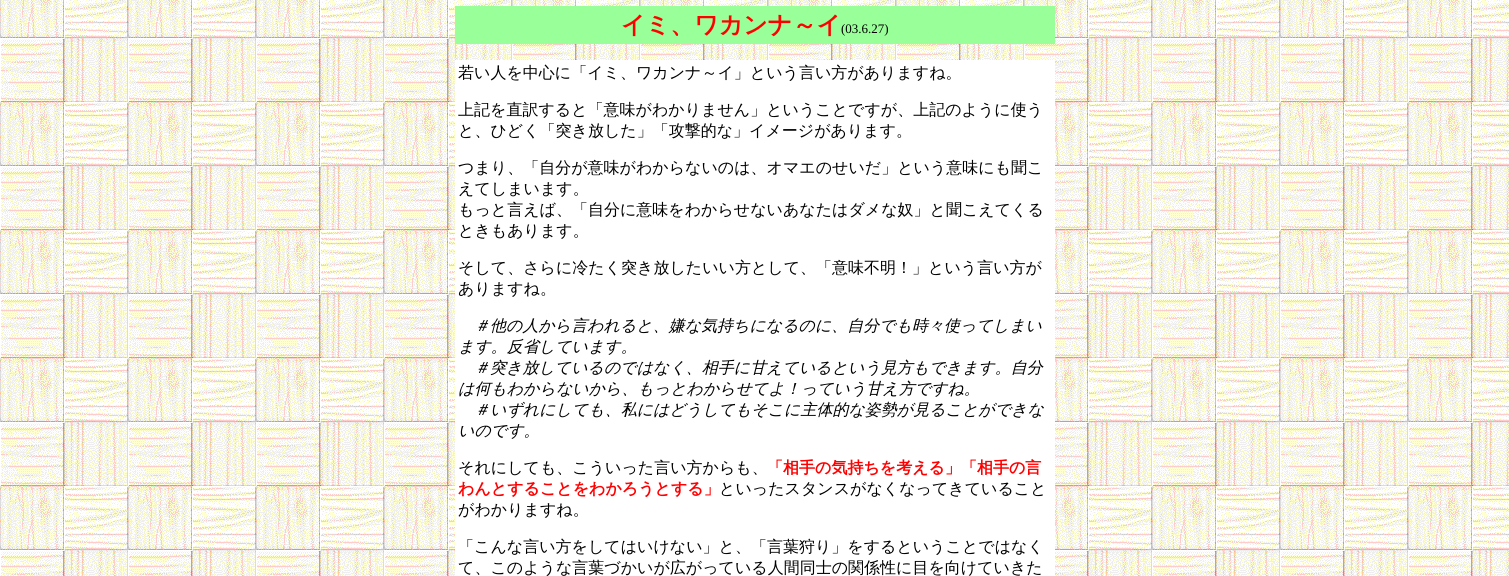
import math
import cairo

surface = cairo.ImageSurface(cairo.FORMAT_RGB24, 1509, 576)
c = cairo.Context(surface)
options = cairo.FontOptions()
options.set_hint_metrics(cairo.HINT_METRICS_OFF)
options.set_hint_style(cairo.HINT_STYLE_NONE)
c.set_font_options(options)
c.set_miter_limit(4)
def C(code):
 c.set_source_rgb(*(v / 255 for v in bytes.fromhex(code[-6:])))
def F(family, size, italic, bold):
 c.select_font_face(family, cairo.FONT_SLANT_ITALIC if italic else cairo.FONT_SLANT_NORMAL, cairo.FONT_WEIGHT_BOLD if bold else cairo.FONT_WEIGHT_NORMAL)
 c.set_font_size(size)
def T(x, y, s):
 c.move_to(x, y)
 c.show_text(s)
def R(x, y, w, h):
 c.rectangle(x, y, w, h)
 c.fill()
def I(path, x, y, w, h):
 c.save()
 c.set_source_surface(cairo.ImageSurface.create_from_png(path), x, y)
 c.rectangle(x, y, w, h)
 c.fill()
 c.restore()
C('ffffff')
c.paint()
I('1.png',0,0,1509,576)
C('99ff99')
R(455,6,600,38)
F('WenQuanYi Zen Hei',24,0,1)
C('ff0000')
T(621,33,'イミ、ワカンナ～イ')
F('Liberation Serif',13,0,0)
C('000000')
T(841,33,'(03.6.27)')
C('ffffff')
R(455,60,600,516)
F('WenQuanYi Zen Hei Medium',16,0,0)
C('000000')
T(458,78,'若い人を中心に「イミ、ワカンナ～イ」という言い方がありますね。')
T(458,115,'上記を直訳すると「意味がわかりません」ということですが、上記のように使う')
T(458,136,'と、ひどく「突き放した」「攻撃的な」イメージがあります。')
T(458,173,'つまり、「自分が意味がわからないのは、オマエのせいだ」という意味にも聞こ')
T(458,194,'えてしまいます。')
T(458,215,'もっと言えば、「自分に意味をわからせないあなたはダメな奴」と聞こえてくる')
T(458,236,'ときもあります。')
T(458,273,'そして、さらに冷たく突き放したいい方として、「意味不明！」という言い方が')
T(458,294,'ありますね。')
F('WenQuanYi Zen Hei Medium',16,1,0)
T(474,331,'＃他の人から言われると、嫌な気持ちになるのに、自分でも時々使ってしまい')
T(458,352,'ます。反省しています。')
T(474,373,'＃突き放しているのではなく、相手に甘えているという見方もできます。自分')
T(458,394,'は何もわからないから、もっとわからせてよ！っていう甘え方ですね。')
T(474,415,'＃いずれにしても、私にはどうしてもそこに主体的な姿勢が見ることができな')
T(458,436,'いのです。')
F('WenQuanYi Zen Hei Medium',16,0,0)
T(458,473,'それにしても、こういった言い方からも、')
F('WenQuanYi Zen Hei',16,0,1)
C('ff0000')
T(767,473,'「相手の気持ちを考える」「相手の言')
T(458,494,'わんとすることをわかろうとする」')
F('WenQuanYi Zen Hei Medium',16,0,0)
C('000000')
T(719,494,'といったスタンスがなくなってきていること')
T(458,515,'がわかりますね。')
T(458,552,'「こんな言い方をしてはいけない」と、「言葉狩り」をするということではなく')
T(458,573,'て、このような言葉づかいが広がっている人間同士の関係性に目を向けていきた')
surface.write_to_png('o.png')
